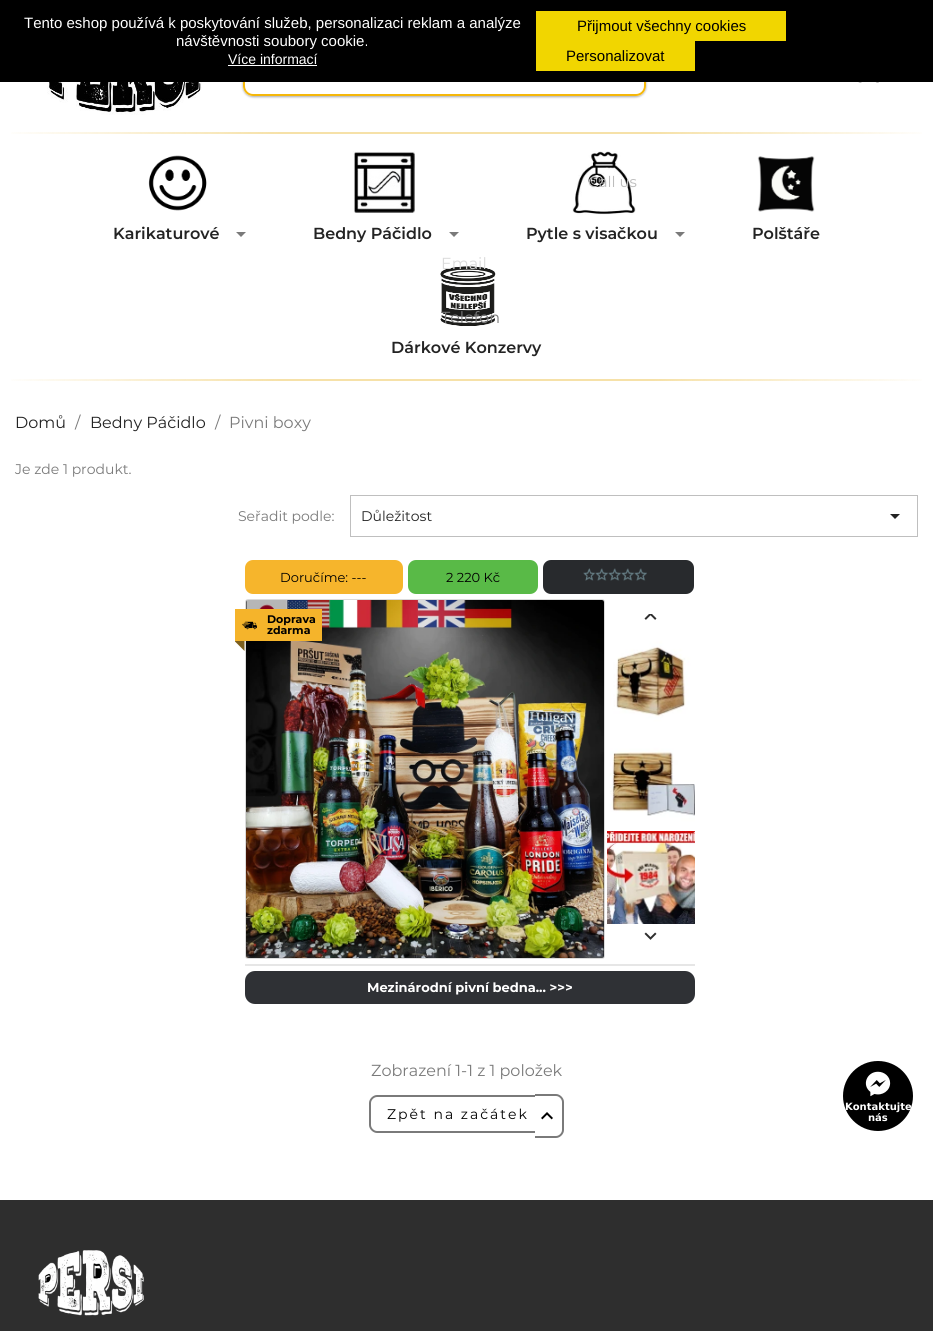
import math
import cairo

surface = cairo.ImageSurface(cairo.FORMAT_RGB24, 933, 1331)
c = cairo.Context(surface)
options = cairo.FontOptions()
options.set_hint_metrics(cairo.HINT_METRICS_OFF)
options.set_hint_style(cairo.HINT_STYLE_NONE)
c.set_font_options(options)
c.set_miter_limit(4)
def C(code):
 c.set_source_rgb(*(v / 255 for v in bytes.fromhex(code[-6:])))
def F(family, size, italic, bold):
 c.select_font_face(family, cairo.FONT_SLANT_ITALIC if italic else cairo.FONT_SLANT_NORMAL, cairo.FONT_WEIGHT_BOLD if bold else cairo.FONT_WEIGHT_NORMAL)
 c.set_font_size(size)
def T(x, y, s):
 c.move_to(x, y)
 c.show_text(s)
def L(x, y, s, letter, word):
 c.move_to(x, y)
 for ch in s:
  c.show_text(ch)
  c.rel_move_to(letter + word * (ch == ' '), 0)
def R(x, y, w, h):
 c.rectangle(x, y, w, h)
 c.fill()
def Q(x, y, w, h, r):
 c.new_sub_path()
 for i, (u, v) in enumerate([(x + w - r, y + h - r), (x + r, y + h - r), (x + r, y + r), (x + w - r, y + r)]):
  c.arc(u, v, r, i * math.pi / 2, (i + 1) * math.pi / 2)
 c.close_path()
def S(x, y, w, h, r, blur, alpha):
 c.push_group_with_content(cairo.CONTENT_ALPHA)
 c.set_operator(cairo.OPERATOR_SOURCE)
 for i in range(15, -16, -2):
  e = blur * i / 6
  if min(w, h) + 2 * e > 0:
   c.set_source_rgba(0, 0, 0, alpha * math.erfc((i - 1) / 8.5) / 2)
   Q(x - e, y - e, w + 2 * e, h + 2 * e, max(0, min(r + e + blur * .6, min(w, h) / 2 + e)))
   c.fill()
 c.mask(c.pop_group())
def I(path, x, y, w, h):
 c.save()
 c.set_source_surface(cairo.ImageSurface.create_from_png(path), x, y)
 c.rectangle(x, y, w, h)
 c.fill()
 c.restore()
C('ffffff')
c.paint()
c.save()
c.set_fill_rule(cairo.FILL_RULE_EVEN_ODD)
c.new_path()
c.move_to(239,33)
c.line_to(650,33)
c.line_to(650,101)
c.line_to(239,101)
c.close_path()
c.move_to(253,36)
c.line_to(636,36)
c.curve_to(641.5,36,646,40.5,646,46)
c.line_to(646,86)
c.curve_to(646,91.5,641.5,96,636,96)
c.line_to(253,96)
c.curve_to(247.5,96,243,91.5,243,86)
c.line_to(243,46)
c.curve_to(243,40.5,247.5,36,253,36)
c.close_path()
c.clip()
C('000000')
S(243,37,403,60,10,1,.24)
c.restore()
c.save()
c.set_fill_rule(cairo.FILL_RULE_EVEN_ODD)
c.new_path()
c.move_to(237,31)
c.line_to(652,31)
c.line_to(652,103)
c.line_to(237,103)
c.close_path()
c.move_to(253,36)
c.line_to(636,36)
c.curve_to(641.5,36,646,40.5,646,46)
c.line_to(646,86)
c.curve_to(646,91.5,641.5,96,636,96)
c.line_to(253,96)
c.curve_to(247.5,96,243,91.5,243,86)
c.line_to(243,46)
c.curve_to(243,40.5,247.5,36,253,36)
c.close_path()
c.clip()
C('000000')
S(243,37,403,60,10,1.5,.12)
c.restore()
Q(244,37,401,58,9)
C('f5b709')
c.stroke()
C('000000')
R(0,0,933,82)
F('Liberation Sans',15,0,0)
C('ffffff')
T(24,28,'Tento eshop používá k poskytování služeb, personalizaci reklam a analýze')
T(176,46,'návštěvnosti soubory cookie.')
F('Liberation Sans',14,0,0)
T(228,64,'Více informací')
R(228,65,89,1)
C('f1d600')
R(536,11,250,30)
F('Liberation Sans',15,0,0)
C('000000')
T(577,31,'Přijmout všechny cookies')
C('f1d600')
R(536,41,159,30)
C('000000')
T(566,61,'Personalizovat')
I('1.png',11,132,911,2)
I('2.png',47,82,155,33)
I('3.png',858,82,21,1)
I('7.png',572,151,64,64)
F('Montserrat',15,0,0)
C('bcbcbc')
T(588,187,'Call us')
I('9.png',440,266,56,60)
F('Montserrat',16,0,0)
C('dbdbdb')
T(441,269,'Email')
C('7a7a7a')
T(441,323,'Telefon')
I('4.png',11,379,911,2)
I('5.png',148,155,59,56)
F('Montserrat SemiBold',16,0,0)
C('232323')
T(113,239,'Karikaturové')
C('7a7a7a')
c.new_path()
c.move_to(241,237)
c.line_to(236,232)
c.line_to(246,232)
c.close_path()
c.fill()
I('6.png',353,151,62,62)
C('232323')
T(313,239,'Bedny Páčidlo')
C('7a7a7a')
c.new_path()
c.move_to(454,237)
c.line_to(449,232)
c.line_to(459,232)
c.close_path()
c.fill()
C('232323')
T(526,239,'Pytle s visačkou')
C('7a7a7a')
c.new_path()
c.move_to(680,237)
c.line_to(675,232)
c.line_to(685,232)
c.close_path()
c.fill()
I('8.png',757,156,58,56)
C('232323')
T(752,239,'Polštáře')
T(391,353,'Dárkové Konzervy')
F('Montserrat',16,0,0)
T(15,428,'Domů')
C('7a7a7a')
T(75,428,'/')
C('232323')
T(90,428,'Bedny Páčidlo')
C('7a7a7a')
T(215,428,'/')
T(229,428,'Pivni boxy')
F('Montserrat',14,0,0)
T(15,474,'Je zde 1 produkt.')
T(238,521,'Seřadit podle:')
c.rectangle(350.5,495.5,567,41)
C('bfbfbf')
c.set_line_width(1)
c.stroke()
C('232323')
T(361,521,'Důležitost')
c.new_path()
c.move_to(895,519)
c.line_to(890,514)
c.line_to(900,514)
c.close_path()
c.fill()
C('f6b52c')
Q(245,560,158,34,8)
c.fill()
F('Montserrat',13,0,0)
C('000000')
T(280,582,'Doručíme: ---')
C('59ba47')
Q(408,560,130,34,8)
c.fill()
C('000000')
T(446,582,'2 220 Kč')
C('282a2d')
Q(543,560,151,34,8)
c.fill()
I('10.png',583,568,12,13)
I('11.png',595,568,13,13)
I('11.png',608,568,13,13)
I('12.png',621,568,13,13)
I('12.png',634,568,13,13)
Q(245.5,599.5,359,359,2.5)
C('dbdbdb')
c.stroke()
I('13.png',246,600,358,358)
C('f5b42b')
R(235,609,87,32)
I('14.png',242,621,15,9)
F('Montserrat',11,0,1)
C('000000')
T(267,623,'Doprava')
T(267,634,'zdarma')
C('7c5f1e')
c.new_path()
c.move_to(244.5,641)
c.line_to(235,641)
c.line_to(235,641.5)
c.line_to(244.5,651)
c.close_path()
c.fill()
I('15.png',644,614,13,6)
I('16.png',607,634,88,97)
I('17.png',607,733,88,96)
I('18.png',607,831,88,93)
I('19.png',644,932,13,8)
C('e6e6e6')
R(245,964,450,2)
C('2f3135')
Q(245,971,450,33,10)
c.fill()
F('Montserrat',13,0,1)
C('ffffff')
T(367,992,'Mezinárodní pivní bedna... >>>')
F('Montserrat',16,0,0)
C('7a7a7a')
T(371,1076,'Zobrazení 1-1 z 1 položek')
c.set_fill_rule(cairo.FILL_RULE_EVEN_ODD)
c.new_path()
c.move_to(377,1095)
c.line_to(535,1095)
c.line_to(535,1133)
c.line_to(377,1133)
c.curve_to(373,1133,369,1129,369,1125)
c.line_to(369,1103)
c.curve_to(369,1099,373,1095,377,1095)
c.close_path()
c.move_to(377,1097)
c.line_to(535,1097)
c.line_to(535,1131)
c.line_to(377,1131)
c.curve_to(374,1131,371,1128,371,1125)
c.line_to(371,1103)
c.curve_to(371,1100,374,1097,377,1097)
c.close_path()
c.fill()
c.new_path()
c.move_to(535,1094)
c.line_to(556,1094)
c.curve_to(560,1094,564,1098,564,1102)
c.line_to(564,1130)
c.curve_to(564,1134,560,1138,556,1138)
c.line_to(535,1138)
c.close_path()
c.move_to(535,1096)
c.line_to(556,1096)
c.curve_to(559,1096,562,1099,562,1102)
c.line_to(562,1130)
c.curve_to(562,1133,559,1136,556,1136)
c.line_to(535,1136)
c.close_path()
c.fill()
F('Montserrat',14,0,0)
C('000000')
L(387,1119,'Zpět na začátek',2,0)
I('20.png',541,1112,12,8)
C('2e2e2e')
R(0,1200,933,131)
I('21.png',38,1250,106,66)
C('000000')
c.arc(878,1096,35,0,2 * math.pi)
c.fill()
I('22.png',865,1071,26,26)
F('DejaVu Sans',10,0,1)
C('ffffff')
T(845,1110,'Kontaktujte')
T(868,1121,'nás')
surface.write_to_png('o.png')
